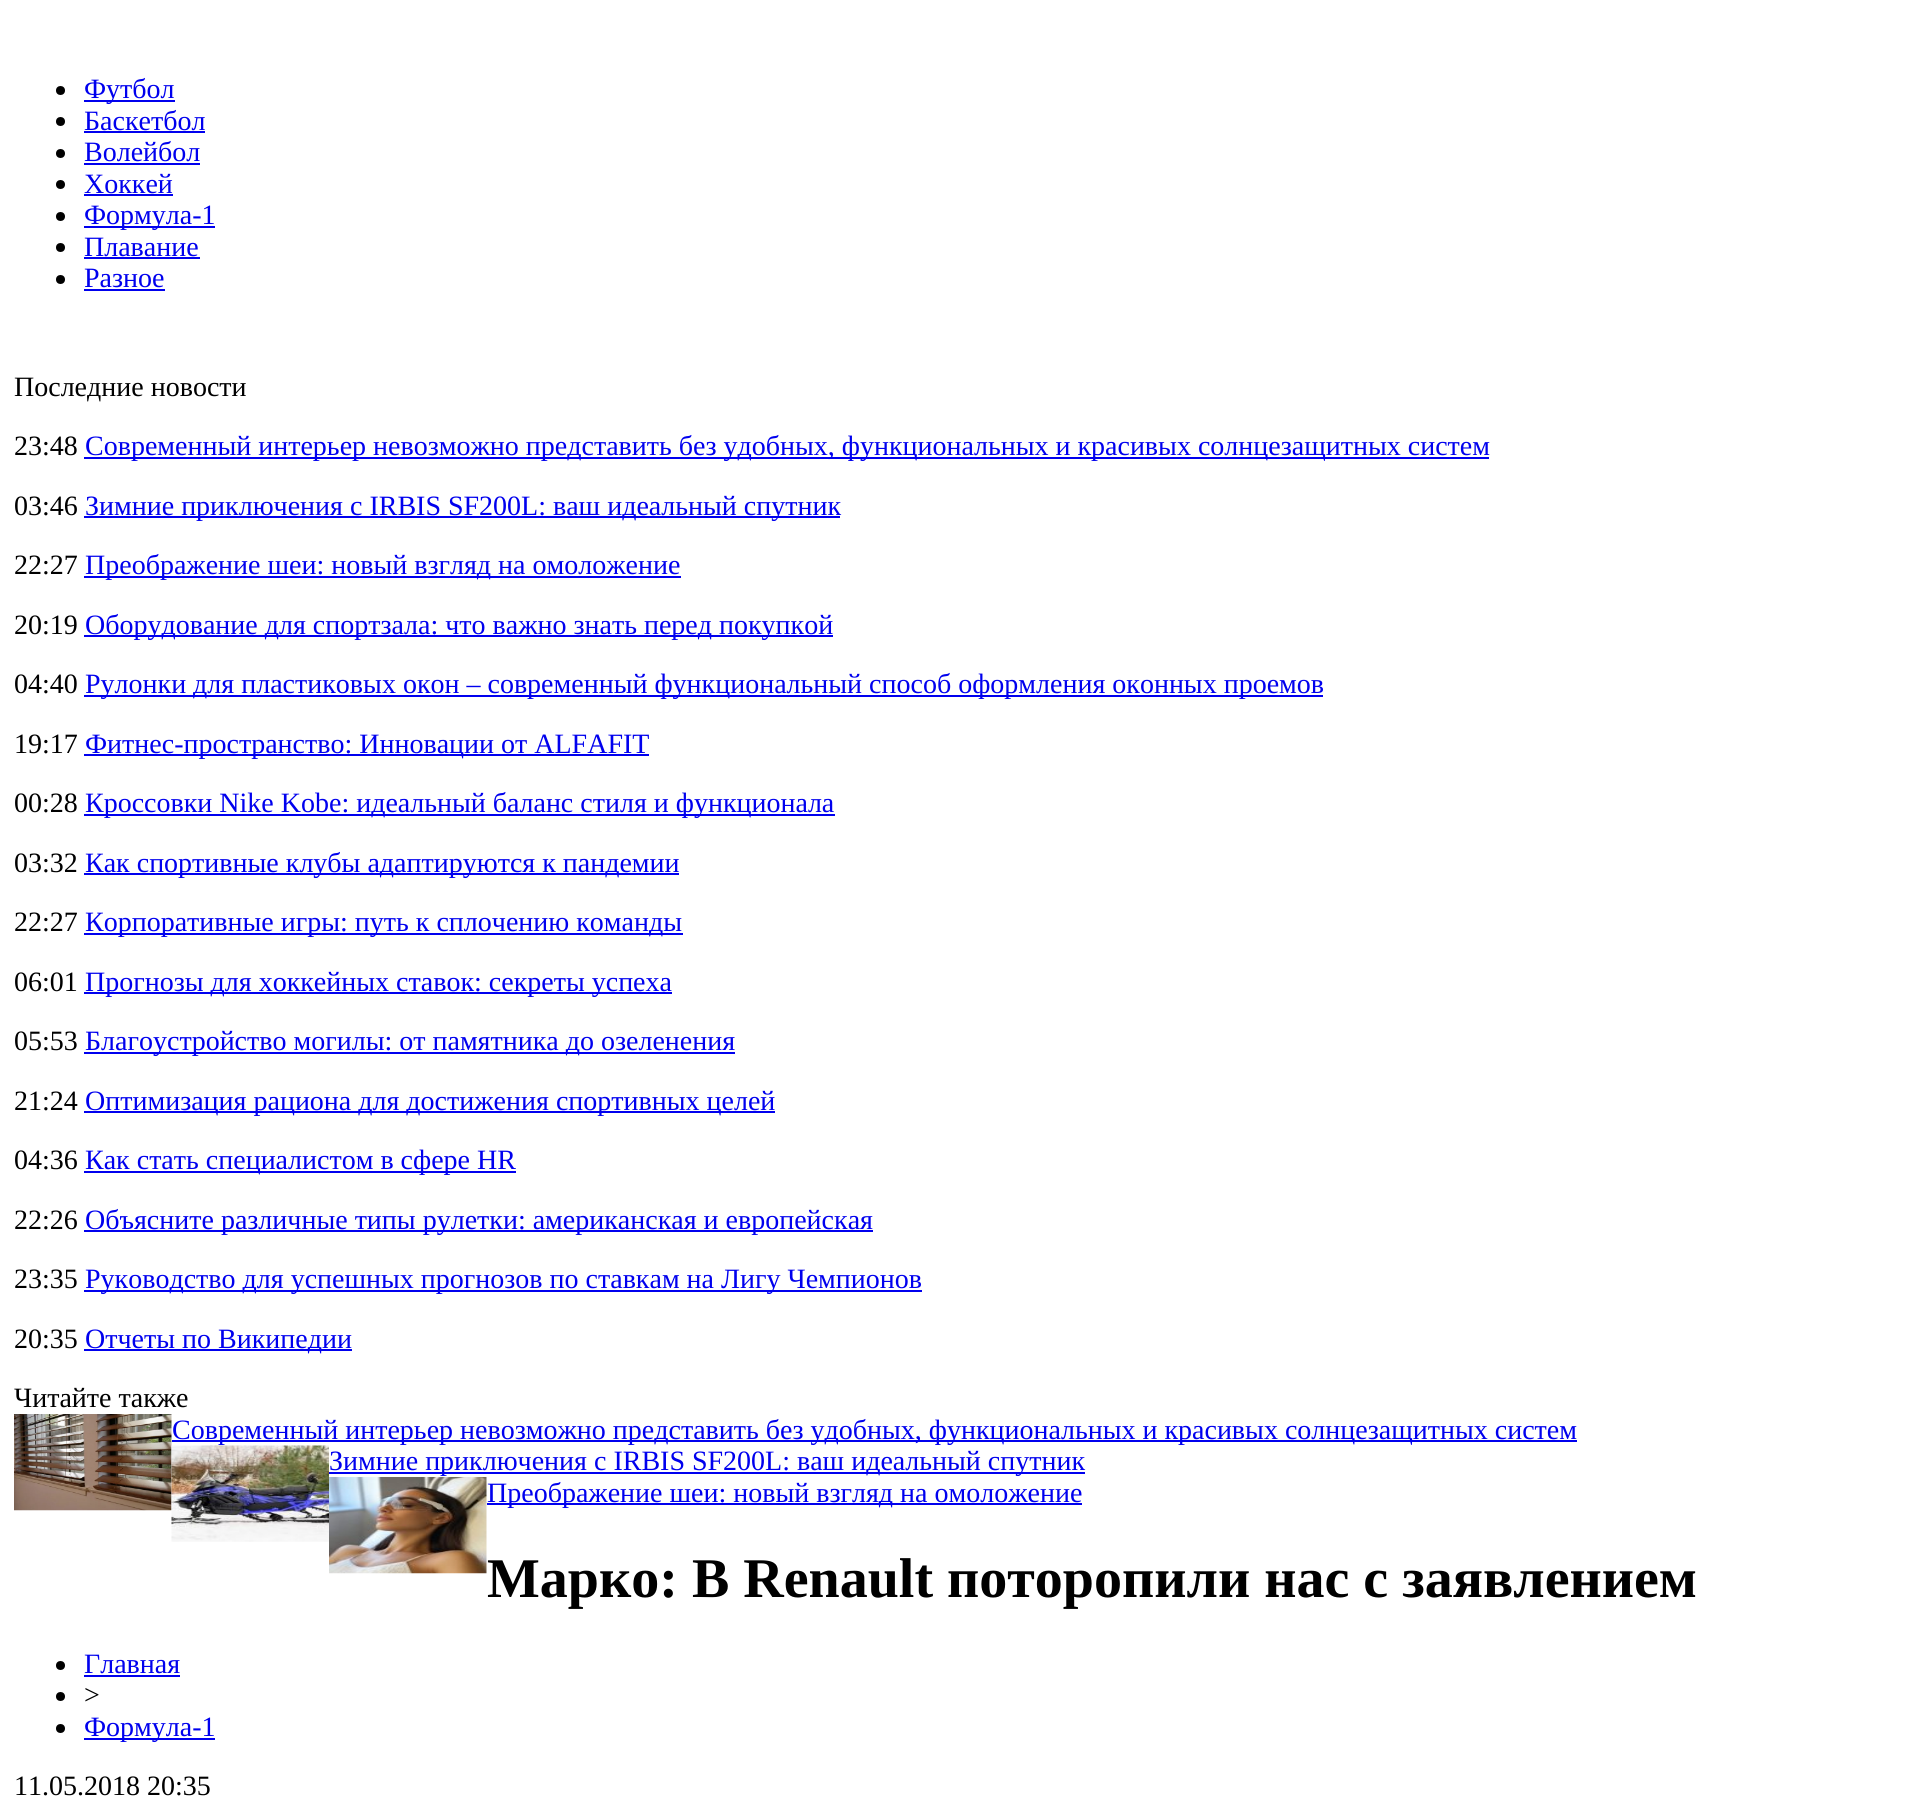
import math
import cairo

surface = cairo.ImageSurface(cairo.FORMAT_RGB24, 1911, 1805)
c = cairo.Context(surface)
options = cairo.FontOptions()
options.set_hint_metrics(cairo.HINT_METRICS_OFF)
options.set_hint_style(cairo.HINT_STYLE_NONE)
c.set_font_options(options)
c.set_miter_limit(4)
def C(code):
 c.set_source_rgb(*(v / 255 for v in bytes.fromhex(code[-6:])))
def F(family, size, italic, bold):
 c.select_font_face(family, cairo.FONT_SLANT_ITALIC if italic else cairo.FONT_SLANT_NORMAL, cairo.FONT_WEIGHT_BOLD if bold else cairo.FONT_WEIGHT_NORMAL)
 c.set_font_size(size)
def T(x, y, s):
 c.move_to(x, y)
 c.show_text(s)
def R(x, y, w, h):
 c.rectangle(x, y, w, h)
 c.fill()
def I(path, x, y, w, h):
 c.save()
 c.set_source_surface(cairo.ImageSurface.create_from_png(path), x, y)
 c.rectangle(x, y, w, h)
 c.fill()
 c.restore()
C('ffffff')
c.paint()
C('000000')
c.arc(60.5,90.5,4.5,0,2 * math.pi)
c.fill()
C('0000ee')
R(84,100,91,2)
F('Liberation Serif',28,0,0)
T(84,98,'Футбол')
C('000000')
c.new_path()
c.arc(60.5,121.5,4.5,0,2 * math.pi)
c.fill()
C('0000ee')
T(84,130,'Баскетбол')
R(84,131,121,2)
C('000000')
c.new_path()
c.arc(60.5,153.5,4.5,0,2 * math.pi)
c.fill()
C('0000ee')
T(84,161,'Волейбол')
R(84,163,116,2)
C('000000')
c.new_path()
c.arc(60.5,184.5,4.5,0,2 * math.pi)
c.fill()
C('0000ee')
T(84,193,'Хоккей')
R(84,194,89,2)
C('000000')
c.new_path()
c.arc(60.5,216.5,4.5,0,2 * math.pi)
c.fill()
C('0000ee')
R(84,226,131,2)
T(84,224,'Формула-1')
C('000000')
c.new_path()
c.arc(60.5,247.5,4.5,0,2 * math.pi)
c.fill()
C('0000ee')
T(84,256,'Плавание')
R(84,257,116,2)
C('000000')
c.new_path()
c.arc(60.5,279.5,4.5,0,2 * math.pi)
c.fill()
C('0000ee')
T(84,287,'Разное')
R(84,289,81,2)
C('000000')
T(14,396,'Последние новости')
T(14,455,'23:48')
C('0000ee')
R(84,457,1405,2)
T(85,455,'Современный интерьер невозможно представить без удобных, функциональных и красивых солнцезащитных систем')
C('000000')
T(14,515,'03:46')
C('0000ee')
R(84,516,756,2)
T(85,515,'Зимние приключения с IRBIS SF200L: ваш идеальный спутник')
C('000000')
T(14,574,'22:27')
C('0000ee')
R(84,576,597,2)
T(85,574,'Преображение шеи: новый взгляд на омоложение')
C('000000')
T(14,634,'20:19')
C('0000ee')
R(84,635,749,2)
T(85,634,'Оборудование для спортзала: что важно знать перед покупкой')
C('000000')
T(14,693,'04:40')
C('0000ee')
R(84,695,1239,2)
T(85,693,'Рулонки для пластиковых окон – современный функциональный способ оформления оконных проемов')
C('000000')
T(14,753,'19:17')
C('0000ee')
R(84,754,565,2)
T(85,753,'Фитнес-пространство: Инновации от ALFAFIT')
C('000000')
T(14,812,'00:28')
C('0000ee')
R(84,814,751,2)
T(85,812,'Кроссовки Nike Kobe: идеальный баланс стиля и функционала')
C('000000')
T(14,872,'03:32')
C('0000ee')
R(84,873,595,2)
T(85,872,'Как спортивные клубы адаптируются к пандемии')
C('000000')
T(14,931,'22:27')
C('0000ee')
R(84,933,599,2)
T(85,931,'Корпоративные игры: путь к сплочению команды')
C('000000')
T(14,991,'06:01')
C('0000ee')
R(84,992,588,2)
T(85,991,'Прогнозы для хоккейных ставок: секреты успеха')
C('000000')
T(14,1050,'05:53')
C('0000ee')
R(84,1052,651,2)
T(85,1050,'Благоустройство могилы: от памятника до озеленения')
C('000000')
T(14,1110,'21:24')
C('0000ee')
R(84,1111,691,2)
T(85,1110,'Оптимизация рациона для достижения спортивных целей')
C('000000')
T(14,1169,'04:36')
C('0000ee')
R(84,1171,432,2)
T(85,1169,'Как стать специалистом в сфере HR')
C('000000')
T(14,1229,'22:26')
C('0000ee')
R(84,1230,789,2)
T(85,1229,'Объясните различные типы рулетки: американская и европейская')
C('000000')
T(14,1288,'23:35')
C('0000ee')
R(84,1290,838,2)
T(85,1288,'Руководство для успешных прогнозов по ставкам на Лигу Чемпионов')
C('000000')
T(14,1348,'20:35')
C('0000ee')
R(84,1349,268,2)
T(85,1348,'Отчеты по Википедии')
C('000000')
T(14,1407,'Читайте также')
I('1.png',14,1414,158,97)
C('0000ee')
R(172,1440,1405,2)
I('2.png',171,1445,158,97)
T(172,1439,'Современный интерьер невозможно представить без удобных, функциональных и красивых солнцезащитных систем')
R(329,1472,756,2)
T(329,1470,'Зимние приключения с IRBIS SF200L: ваш идеальный спутник')
I('3.png',329,1477,158,97)
R(487,1503,595,2)
T(487,1502,'Преображение шеи: новый взгляд на омоложение')
F('Liberation Serif',56,0,1)
C('000000')
T(487,1597,'Марко: В Renault поторопили нас с заявлением')
c.new_path()
c.arc(60.5,1665.5,4.5,0,2 * math.pi)
c.fill()
F('Liberation Serif',28,0,0)
C('0000ee')
T(84,1673,'Главная')
R(84,1675,96,2)
C('000000')
c.new_path()
c.arc(60.5,1696.5,4.5,0,2 * math.pi)
c.fill()
T(84,1704,'>')
c.new_path()
c.arc(60.5,1728.5,4.5,0,2 * math.pi)
c.fill()
C('0000ee')
R(84,1738,131,2)
T(84,1736,'Формула-1')
C('000000')
T(14,1795,'11.05.2018 20:35')
surface.write_to_png('o.png')
